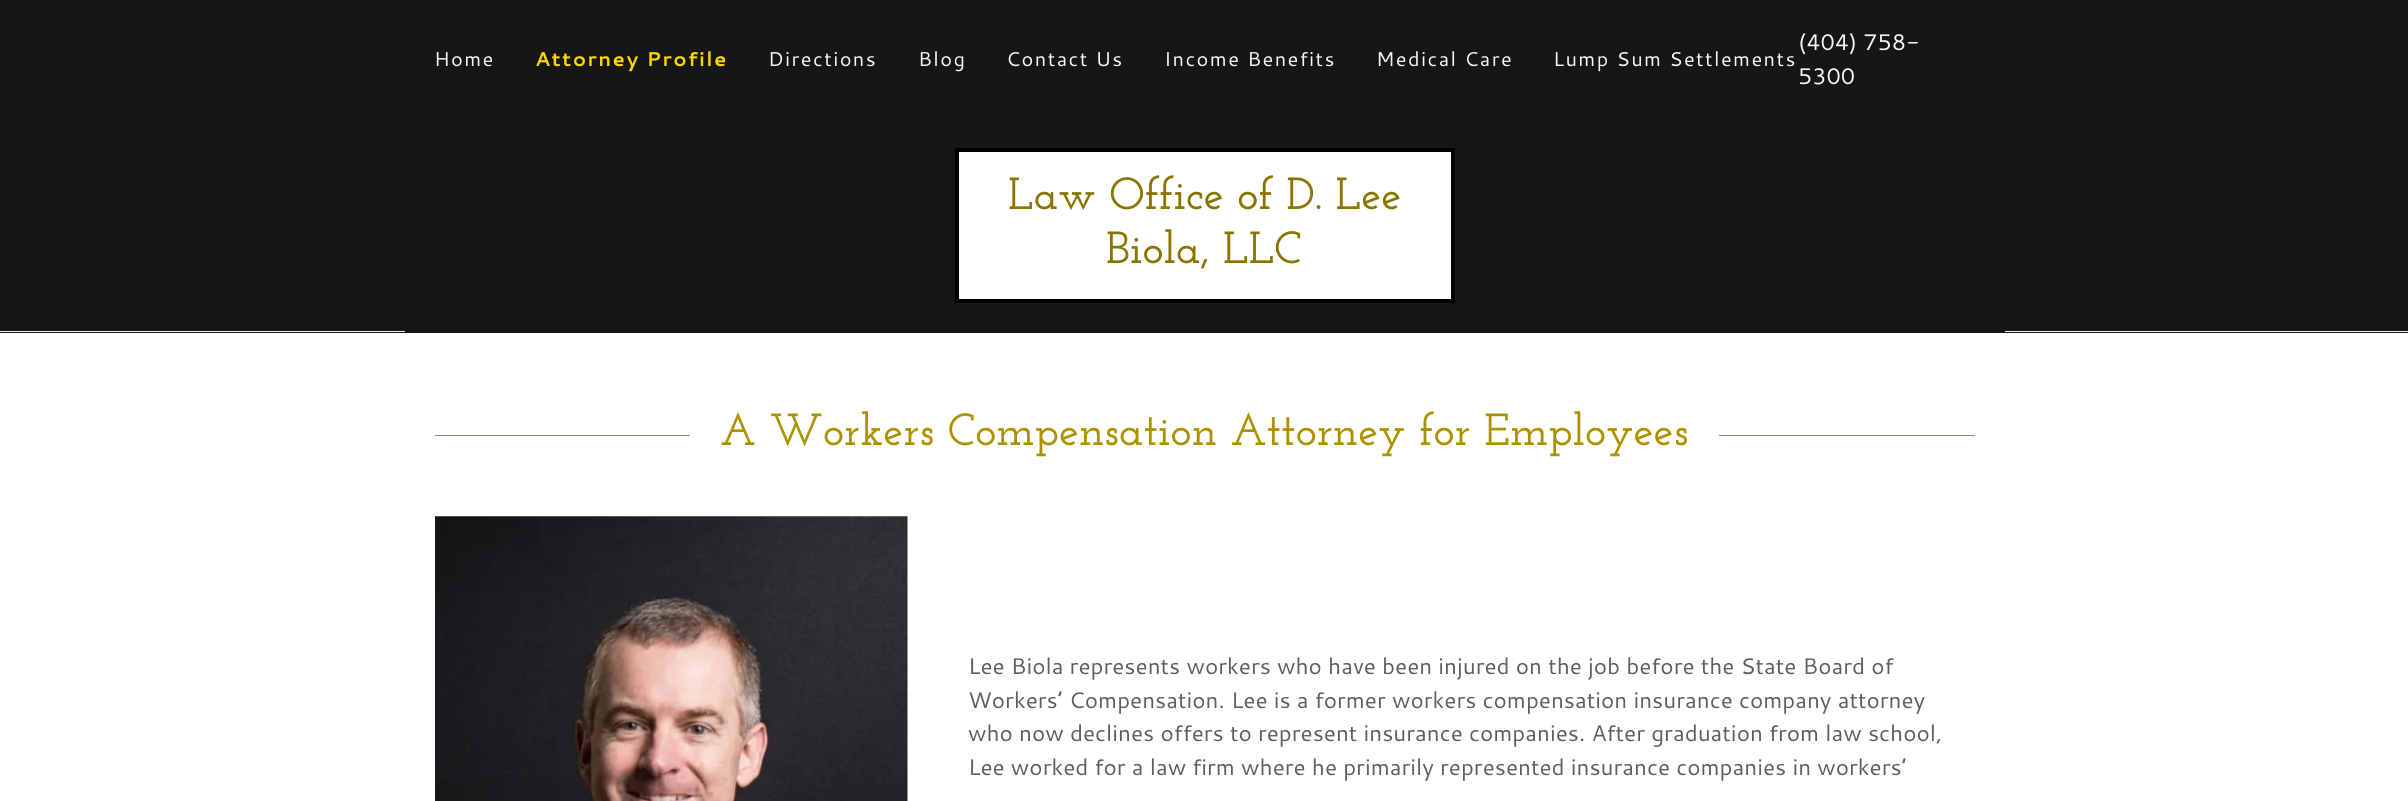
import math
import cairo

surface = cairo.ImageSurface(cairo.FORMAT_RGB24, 2408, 801)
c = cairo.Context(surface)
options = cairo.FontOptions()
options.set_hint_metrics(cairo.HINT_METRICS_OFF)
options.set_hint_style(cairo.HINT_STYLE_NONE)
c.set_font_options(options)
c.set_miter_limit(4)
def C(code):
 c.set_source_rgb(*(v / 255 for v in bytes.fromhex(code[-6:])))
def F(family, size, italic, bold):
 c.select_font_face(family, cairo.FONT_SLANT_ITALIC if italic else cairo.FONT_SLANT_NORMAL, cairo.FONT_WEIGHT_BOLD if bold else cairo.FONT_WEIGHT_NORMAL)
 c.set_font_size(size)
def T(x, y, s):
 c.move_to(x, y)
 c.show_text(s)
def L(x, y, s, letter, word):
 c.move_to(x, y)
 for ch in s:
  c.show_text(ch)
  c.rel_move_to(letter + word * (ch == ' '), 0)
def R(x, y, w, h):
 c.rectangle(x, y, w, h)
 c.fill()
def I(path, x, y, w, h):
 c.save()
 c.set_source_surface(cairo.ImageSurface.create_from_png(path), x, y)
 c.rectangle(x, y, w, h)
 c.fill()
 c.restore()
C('161616')
c.paint()
C('eeeeee')
R(0,331,2408,1)
F('Cantarell',20,0,0)
C('f7f7f7')
L(434,66,'Home',1.4,0)
F('Cantarell',20,0,1)
C('ffd700')
L(535,66,'Attorney Profile',1.4,0)
F('Cantarell',20,0,0)
C('f7f7f7')
L(768,66,'Directions',1.4,0)
L(918,66,'Blog',1.4,0)
L(1006,66,'Contact Us',1.4,0)
L(1164,66,'Income Benefits',1.4,0)
L(1376,66,'Medical Care',1.4,0)
L(1553,66,'Lump Sum Settlements',1.4,0)
F('Cantarell',22.5,0,0)
T(1798,50,'(404) 758-')
T(1798,84,'5300')
C('161616')
R(405,331,1600,1)
C('ffffff')
c.rectangle(957,150,496,151)
c.fill_preserve()
C('000000')
c.set_line_width(4)
c.stroke()
F('Josefin Slab Thin',45,0,0)
C('8a7400')
T(1008,209,'Law Office of D. Lee')
T(1106,263,'Biola, LLC')
C('ffffff')
R(0,333,2408,468)
C('ad9200')
R(435,435,255,1)
T(720,445,'A Workers Compensation Attorney for Employees')
R(1719,435,256,1)
I('1.png',435,516,473,285)
F('Cantarell',22.5,0,0)
C('5e5e5e')
T(968,674,'Lee Biola represents workers who have been injured on the job before the State Board of')
T(968,708,'Workers’ Compensation. Lee is a former workers compensation insurance company attorney')
T(968,741,'who now declines offers to represent insurance companies. After graduation from law school,')
T(968,775,'Lee worked for a law firm where he primarily represented insurance companies in workers’')
surface.write_to_png('o.png')
